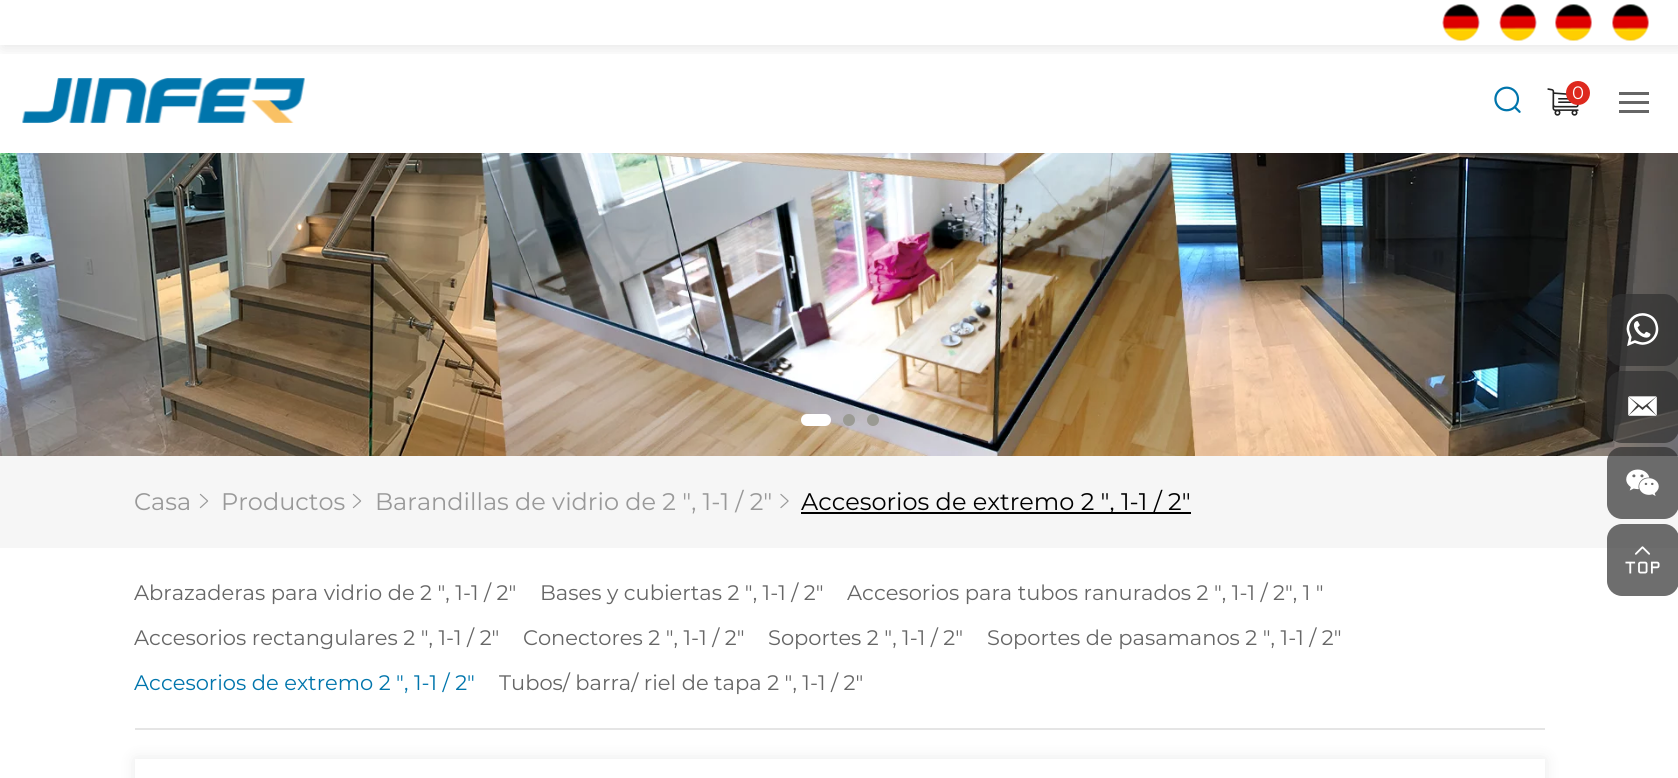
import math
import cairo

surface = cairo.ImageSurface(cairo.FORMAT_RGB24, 1678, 778)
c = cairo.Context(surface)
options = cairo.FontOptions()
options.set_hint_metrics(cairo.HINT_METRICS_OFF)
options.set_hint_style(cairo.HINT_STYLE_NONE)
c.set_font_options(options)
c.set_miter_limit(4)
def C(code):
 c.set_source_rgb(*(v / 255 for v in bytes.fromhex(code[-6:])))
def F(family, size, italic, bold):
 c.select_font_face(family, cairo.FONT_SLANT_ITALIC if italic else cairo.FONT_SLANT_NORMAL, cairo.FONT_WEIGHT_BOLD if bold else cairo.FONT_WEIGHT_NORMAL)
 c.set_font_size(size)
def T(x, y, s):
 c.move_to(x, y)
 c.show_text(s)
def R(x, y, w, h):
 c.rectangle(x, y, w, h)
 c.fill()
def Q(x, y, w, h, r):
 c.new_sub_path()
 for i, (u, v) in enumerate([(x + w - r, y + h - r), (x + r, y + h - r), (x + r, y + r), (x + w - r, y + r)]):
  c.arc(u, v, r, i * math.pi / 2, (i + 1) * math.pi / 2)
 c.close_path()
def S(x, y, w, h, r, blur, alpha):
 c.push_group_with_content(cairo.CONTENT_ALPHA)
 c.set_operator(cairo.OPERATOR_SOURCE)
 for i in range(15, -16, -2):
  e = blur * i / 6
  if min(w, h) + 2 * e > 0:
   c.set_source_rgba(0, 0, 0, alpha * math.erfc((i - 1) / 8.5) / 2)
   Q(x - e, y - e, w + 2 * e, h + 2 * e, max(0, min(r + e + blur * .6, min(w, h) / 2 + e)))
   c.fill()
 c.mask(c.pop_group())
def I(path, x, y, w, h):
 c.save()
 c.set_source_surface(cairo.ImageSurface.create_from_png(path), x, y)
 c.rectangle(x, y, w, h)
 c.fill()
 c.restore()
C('ffffff')
c.paint()
c.save()
c.rectangle(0,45,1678,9)
c.clip()
C('000000')
S(2,3,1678,45,0,7.5,.1)
c.restore()
I('1.png',1442,4,38,37)
I('1.png',1499,4,38,37)
I('2.png',1555,4,37,37)
I('3.png',1612,4,37,37)
I('4.png',22,78,283,45)
I('5.png',1494,86,27,27)
I('6.png',1547,88,32,28)
C('de291e')
c.arc(1578,93,12,0,2 * math.pi)
c.fill()
F('Montserrat',18,0,0)
C('ffffff')
T(1572,99,'0')
C('666666')
R(1619,92,30,3)
R(1619,101,30,3)
R(1619,110,30,3)
I('7.png',0,153,1678,303)
C('ffffff')
Q(801,414,30,12,6)
c.fill()
C('9a9a93')
c.arc(849,420,6,0,2 * math.pi)
c.fill()
c.arc(873,420,6,0,2 * math.pi)
c.fill()
C('f6f6f6')
R(0,456,1678,92)
F('Montserrat',24,0,0)
C('999999')
T(134,510,'Casa')
I('8.png',199,493,10,16)
T(221,510,'Productos')
I('8.png',352,493,10,16)
T(375,510,'Barandillas de vidrio de 2 ", 1-1 / 2"')
I('9.png',780,493,9,16)
C('000000')
R(801,512,390,2)
T(801,510,'Accesorios de extremo 2 ", 1-1 / 2"')
C('e5e5e5')
R(135,728,1410,2)
F('Montserrat',21,0,0)
C('666666')
T(134,600,'Abrazaderas para vidrio de 2 ", 1-1 / 2"')
T(540,600,'Bases y cubiertas 2 ", 1-1 / 2"')
T(847,600,'Accesorios para tubos ranurados 2 ", 1-1 / 2", 1 "')
T(134,645,'Accesorios rectangulares 2 ", 1-1 / 2"')
T(523,645,'Conectores 2 ", 1-1 / 2"')
T(768,645,'Soportes 2 ", 1-1 / 2"')
T(987,645,'Soportes de pasamanos 2 ", 1-1 / 2"')
C('0075ac')
T(134,690,'Accesorios de extremo 2 ", 1-1 / 2"')
C('666666')
T(499,690,'Tubos/ barra/ riel de tapa 2 ", 1-1 / 2"')
c.save()
c.set_fill_rule(cairo.FILL_RULE_EVEN_ODD)
c.new_path()
c.move_to(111,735)
c.line_to(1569,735)
c.line_to(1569,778)
c.line_to(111,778)
c.close_path()
c.move_to(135,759)
c.line_to(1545,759)
c.line_to(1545,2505)
c.line_to(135,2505)
c.close_path()
c.clip()
C('26292a')
S(135,759,1410,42,0,7.5,.1)
c.restore()
c.set_source_rgba(0.192,0.192,0.192,0.7)
Q(1607,294,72,72,15)
c.fill()
I('10.png',1626,313,33,33)
Q(1607,371,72,72,15)
c.fill()
I('11.png',1628,396,29,20)
Q(1607,447,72,72,15)
c.fill()
I('12.png',1626,469,33,27)
Q(1607,524,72,72,15)
c.fill()
I('13.png',1625,546,35,28)
surface.write_to_png('o.png')
